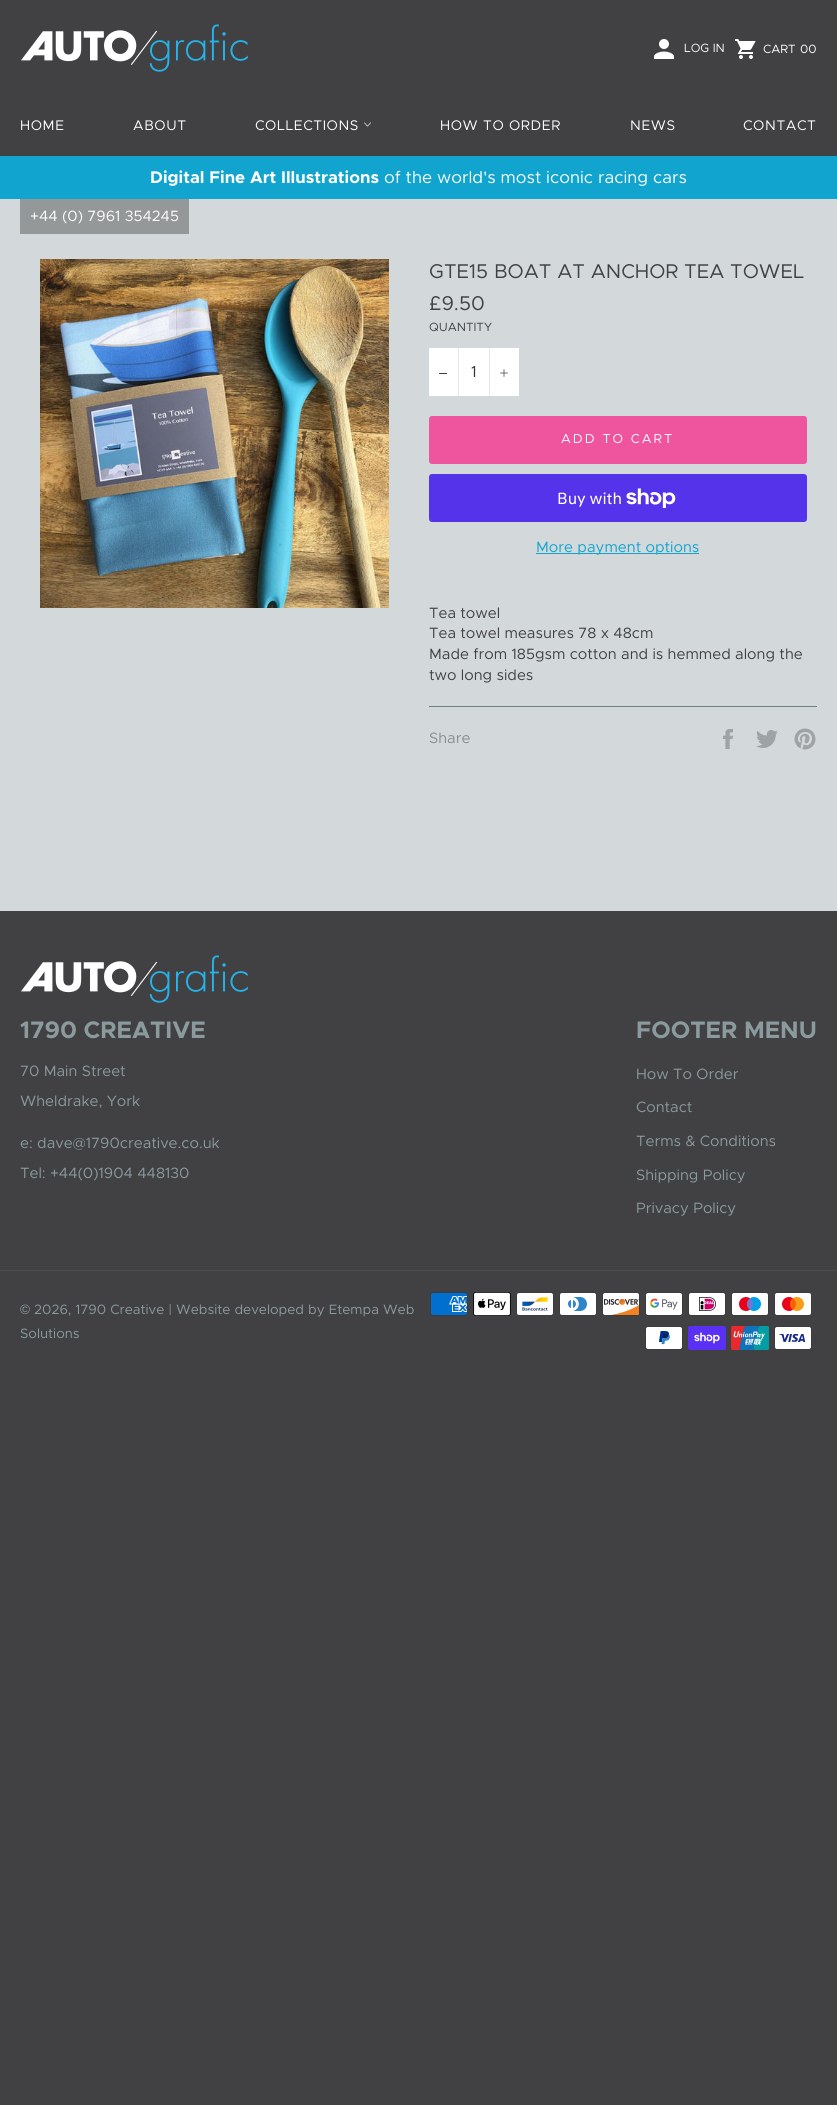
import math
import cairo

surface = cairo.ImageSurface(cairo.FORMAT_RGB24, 837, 2105)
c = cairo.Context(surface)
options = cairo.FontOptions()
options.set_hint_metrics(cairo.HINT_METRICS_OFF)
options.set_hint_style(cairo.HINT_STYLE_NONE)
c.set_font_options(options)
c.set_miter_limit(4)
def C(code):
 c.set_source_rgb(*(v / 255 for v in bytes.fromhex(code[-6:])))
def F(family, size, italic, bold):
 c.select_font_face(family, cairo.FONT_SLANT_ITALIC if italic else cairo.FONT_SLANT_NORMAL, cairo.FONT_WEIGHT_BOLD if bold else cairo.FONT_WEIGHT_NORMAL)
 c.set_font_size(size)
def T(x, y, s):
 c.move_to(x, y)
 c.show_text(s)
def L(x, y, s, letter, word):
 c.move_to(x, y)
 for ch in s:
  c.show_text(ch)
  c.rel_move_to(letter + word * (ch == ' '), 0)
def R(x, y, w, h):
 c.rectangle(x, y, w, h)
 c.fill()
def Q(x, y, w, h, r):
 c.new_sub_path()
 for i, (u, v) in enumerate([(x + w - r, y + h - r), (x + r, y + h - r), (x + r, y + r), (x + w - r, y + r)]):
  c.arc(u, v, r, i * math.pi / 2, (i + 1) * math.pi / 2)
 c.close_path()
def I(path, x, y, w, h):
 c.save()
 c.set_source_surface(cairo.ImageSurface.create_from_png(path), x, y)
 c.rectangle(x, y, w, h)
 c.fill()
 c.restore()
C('414042')
c.paint()
I('1.png',21,24,227,48)
I('2.png',654,39,20,20)
F('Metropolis',12,0,0)
C('ffffff')
T(684,52,'LOG IN')
I('3.png',735,39,21,20)
T(763,53,'CART')
T(800,53,'00')
F('Metropolis',14,0,0)
L(20,130,'HOME',.6,0)
L(133,130,'ABOUT',.6,0)
L(255,130,'COLLECTIONS',.6,0)
I('4.png',364,122,7,5)
L(440,130,'HOW TO ORDER',.6,0)
L(630,130,'NEWS',.6,0)
L(743,130,'CONTACT',.6,0)
C('10a4ce')
R(0,156,837,43)
F('Metropolis',17,0,1)
C('ffffff')
T(150,183,'Digital Fine Art Illustrations')
F('Metropolis',17,0,0)
T(384,183,'of the world\'s most iconic racing cars')
C('d3d9db')
R(0,199,837,712)
C('949899')
R(20,199,169,35)
F('Metropolis',15,0,0)
C('ffffff')
T(30,221,'+44 (0) 7961 354245')
I('5.png',40,259,349,349)
F('Metropolis',20,0,0)
C('414042')
T(429,278,'GTE15 BOAT AT ANCHOR TEA TOWEL')
T(429,310,'£9.50')
F('Metropolis',12,0,0)
T(429,331,'QUANTITY')
C('ffffff')
R(429,348,90,48)
C('e7e7e7')
R(458,348,1,48)
C('414042')
R(439,373,8,1)
F('Metropolis',16,0,0)
C('333333')
T(471,377,'1')
C('e7e7e7')
R(489,348,1,48)
I('6.png',500,369,8,8)
C('ef549f')
Q(429.5,416.5,377,47,2.5)
c.fill_preserve()
c.set_line_width(1)
c.stroke()
F('Metropolis',13,0,0)
C('ffffff')
L(561,443,'ADD TO CART',2,0)
C('5433eb')
Q(429,474,378,48,3)
c.fill()
F('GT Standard',16,0,0)
C('ffffff')
T(557,504,'Buy with')
I('7.png',626,488,50,20)
C('10a4ce')
R(536,553,163,1)
F('Metropolis',15,0,0)
T(536,552,'More payment options')
C('414042')
T(429,618,'Tea towel')
T(429,638,'Tea towel measures 78 x 48cm')
T(429,659,'Made from 185gsm cotton and is hemmed along the')
T(429,680,'two long sides')
C('717e81')
R(429,706,388,1)
C('8a8d8f')
T(429,743,'Share')
I('8.png',723,729,10,20)
I('9.png',756,730,22,18)
I('10.png',794,728,22,22)
I('11.png',21,955,227,48)
F('Metropolis',24,0,1)
C('8b9a9d')
T(20,1038,'1790 CREATIVE')
F('Metropolis',15,0,0)
T(20,1076,'70 Main Street')
T(20,1106,'Wheldrake, York')
T(20,1148,'e: dave@1790creative.co.uk')
T(20,1178,'Tel: +44(0)1904 448130')
F('Metropolis',24,0,1)
T(636,1038,'FOOTER MENU')
F('Metropolis',15,0,0)
T(636,1079,'How To Order')
T(636,1112,'Contact')
T(636,1146,'Terms & Conditions')
T(636,1180,'Shipping Policy')
T(636,1213,'Privacy Policy')
C('4e4d4f')
R(0,1270,837,1)
F('Liberation Sans',13.6,0,0)
C('8b9a9d')
T(20,1314,'©')
F('Metropolis',13.6,0,0)
T(34,1314,'2026, 1790 Creative | Website developed by Etempa Web')
T(20,1338,'Solutions')
I('12.png',430,1292,38,24)
I('13.png',473,1292,38,24)
I('14.png',516,1292,38,24)
I('15.png',559,1292,38,24)
I('16.png',602,1292,38,24)
I('17.png',645,1292,38,24)
I('18.png',688,1292,38,24)
I('19.png',731,1292,38,24)
I('20.png',774,1292,38,24)
I('21.png',645,1326,38,24)
I('22.png',688,1326,38,24)
I('23.png',731,1326,38,24)
I('24.png',774,1326,38,24)
surface.write_to_png('o.png')
